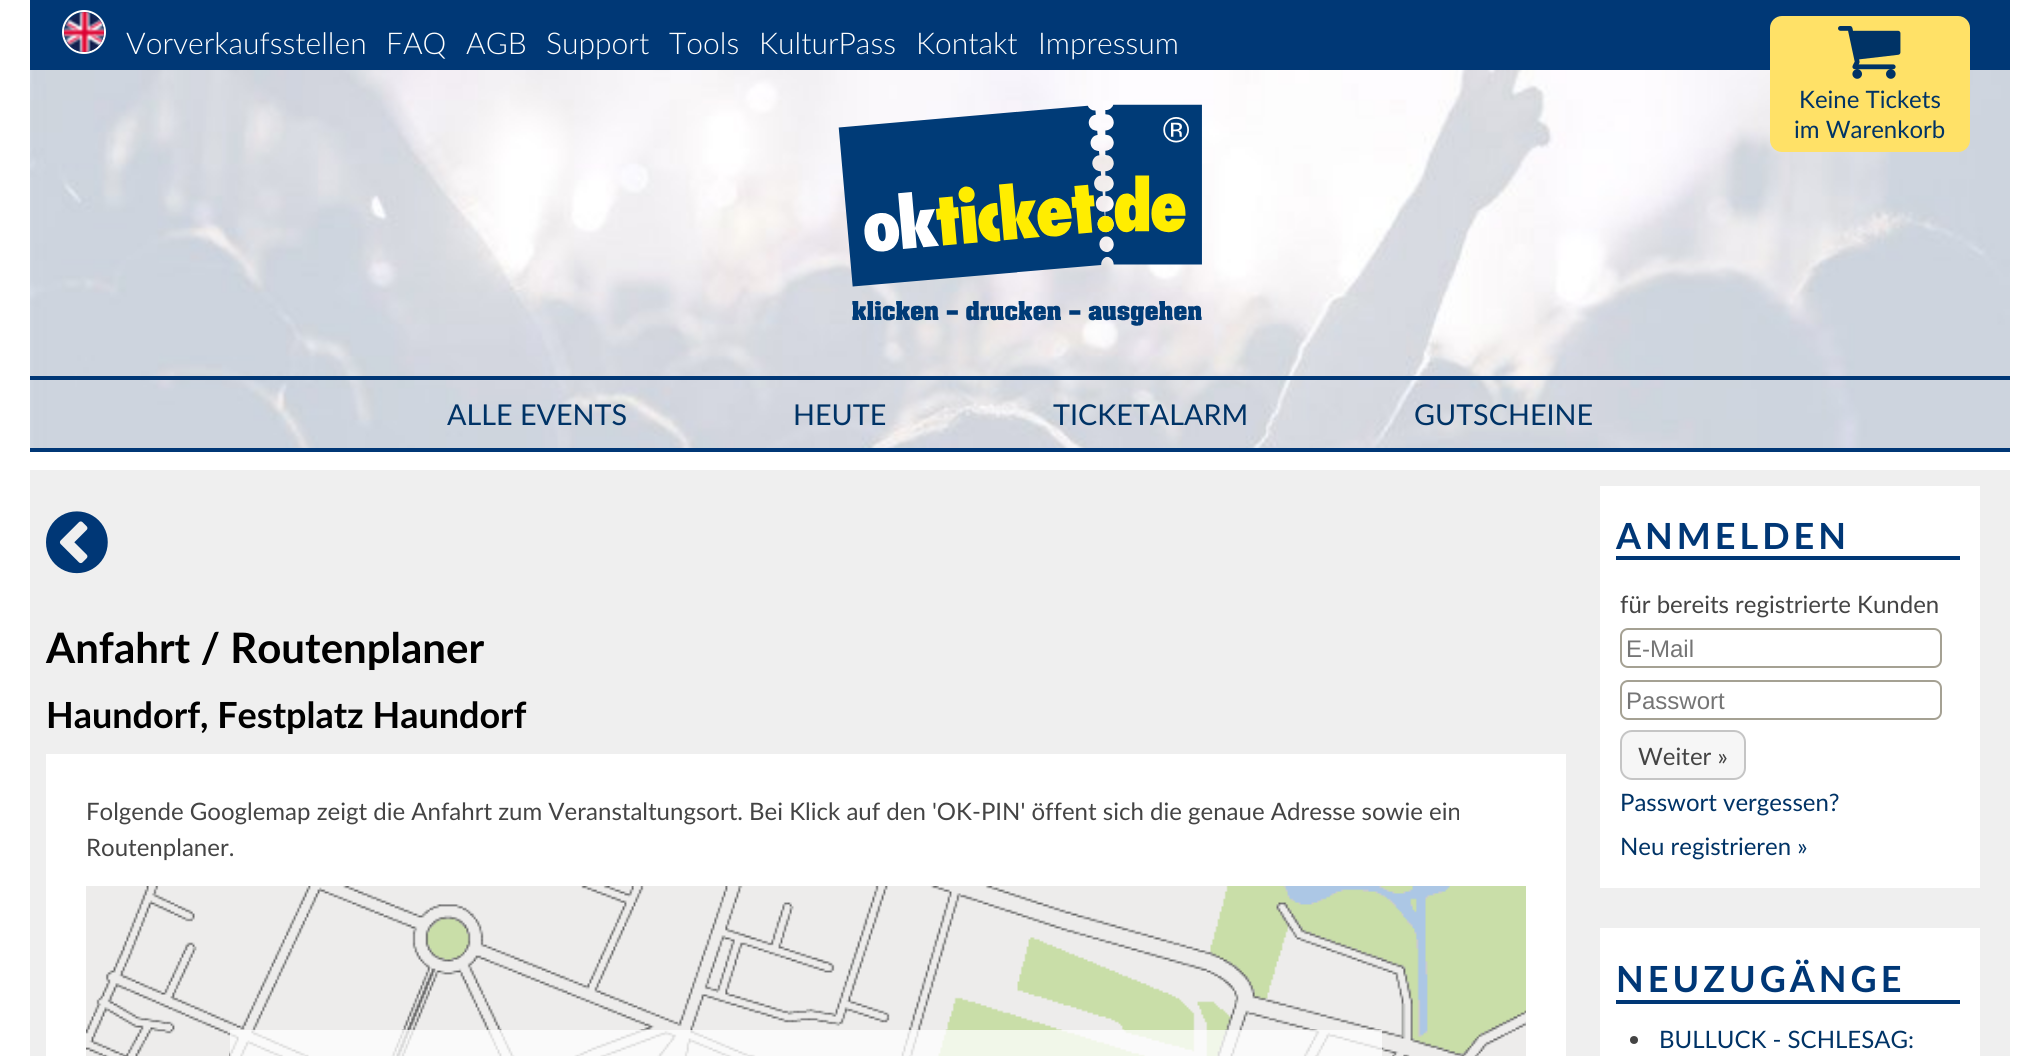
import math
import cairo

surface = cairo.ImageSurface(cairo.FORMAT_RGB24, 2039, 1056)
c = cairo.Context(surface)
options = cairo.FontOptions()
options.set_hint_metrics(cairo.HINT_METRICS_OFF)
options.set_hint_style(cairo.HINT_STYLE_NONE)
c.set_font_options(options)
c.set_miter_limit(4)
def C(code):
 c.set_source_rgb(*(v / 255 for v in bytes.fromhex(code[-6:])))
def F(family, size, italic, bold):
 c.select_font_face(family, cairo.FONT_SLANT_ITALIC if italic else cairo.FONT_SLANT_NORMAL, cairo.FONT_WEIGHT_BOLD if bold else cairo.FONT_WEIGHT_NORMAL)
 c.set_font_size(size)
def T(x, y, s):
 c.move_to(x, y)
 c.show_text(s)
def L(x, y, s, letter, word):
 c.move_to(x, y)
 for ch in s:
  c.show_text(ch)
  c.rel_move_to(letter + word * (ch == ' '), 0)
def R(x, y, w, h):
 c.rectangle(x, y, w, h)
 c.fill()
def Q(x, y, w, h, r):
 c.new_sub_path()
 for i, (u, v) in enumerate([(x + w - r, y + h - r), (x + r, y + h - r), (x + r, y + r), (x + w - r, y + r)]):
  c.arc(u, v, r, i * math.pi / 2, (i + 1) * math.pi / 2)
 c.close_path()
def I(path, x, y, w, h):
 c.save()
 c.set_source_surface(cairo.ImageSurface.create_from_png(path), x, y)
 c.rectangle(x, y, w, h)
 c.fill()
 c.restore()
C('ffffff')
c.paint()
I('1.png',30,70,1980,378)
C('003876')
R(30,0,1980,70)
c.arc(84,32,21,0,2 * math.pi)
C('ffffff')
c.stroke()
I('2.png',64,12,40,40)
F('Lato Light',30,0,0)
T(126,54,'Vorverkaufsstellen')
T(386,54,'FAQ')
T(466,54,'AGB')
T(546,54,'Support')
T(669,54,'Tools')
T(759,54,'KulturPass')
T(916,54,'Kontakt')
T(1038,54,'Impressum')
I('3.png',838,104,364,222)
C('ffe167')
Q(1770,16,200,136,12)
c.fill()
I('4.png',1838,26,63,53)
F('Lato',24,0,0)
C('003366')
T(1799,108,'Keine Tickets')
T(1794,138,'im Warenkorb')
C('003776')
R(30,376,1980,4)
R(30,448,1980,4)
F('Lato',28.75,0,0)
C('003366')
T(447,425,'ALLE EVENTS')
T(793,425,'HEUTE')
T(1053,425,'TICKETALARM')
T(1414,425,'GUTSCHEINE')
C('efefef')
R(30,470,1980,586)
I('5.png',46,511,62,63)
F('Lato',42,0,1)
C('000000')
T(46,663,'Anfahrt / Routenplaner')
F('Lato',36,0,1)
T(46,728,'Haundorf, Festplatz Haundorf')
C('ffffff')
R(46,754,1520,302)
F('Lato',24.02,0,0)
C('444444')
T(86,820,'Folgende Googlemap zeigt die Anfahrt zum Veranstaltungsort. Bei Klick auf den \'OK-PIN\' öffent sich die genaue Adresse sowie ein')
T(86,856,'Routenplaner.')
I('6.png',86,886,1440,170)
c.set_source_rgba(1,1,1,0.75)
R(230,1030,1152,26)
C('ffffff')
R(1600,486,380,402)
C('003776')
R(1616,556,344,4)
F('Lato',36,0,1)
L(1616,549,'ANMELDEN',4,0)
F('Lato',24,0,0)
C('444444')
T(1620,613,'für bereits registrierte Kunden')
Q(1621,629,320,38,7)
C('a5a193')
c.stroke()
F('Liberation Sans',24,0,0)
C('757575')
T(1626,657,'E-Mail')
Q(1621,681,320,38,7)
C('a5a193')
c.stroke()
C('757575')
T(1626,709,'Passwort')
C('f6f6f6')
Q(1621,731,124,48,11)
c.fill_preserve()
C('c5c5c5')
c.stroke()
F('Lato',24,0,0)
C('444444')
T(1638,765,'Weiter »')
C('003366')
T(1620,811,'Passwort vergessen?')
T(1620,855,'Neu registrieren »')
C('ffffff')
R(1600,928,380,128)
C('003776')
R(1616,1000,344,4)
F('Lato',36,0,1)
L(1616,992,'NEUZUGÄNGE',4,0)
C('444444')
c.new_path()
c.arc(1634,1040,4,0,2 * math.pi)
c.fill()
F('Lato',24,0,0)
C('003366')
T(1659,1048,'BULLUCK - SCHLESAG:')
surface.write_to_png('o.png')
